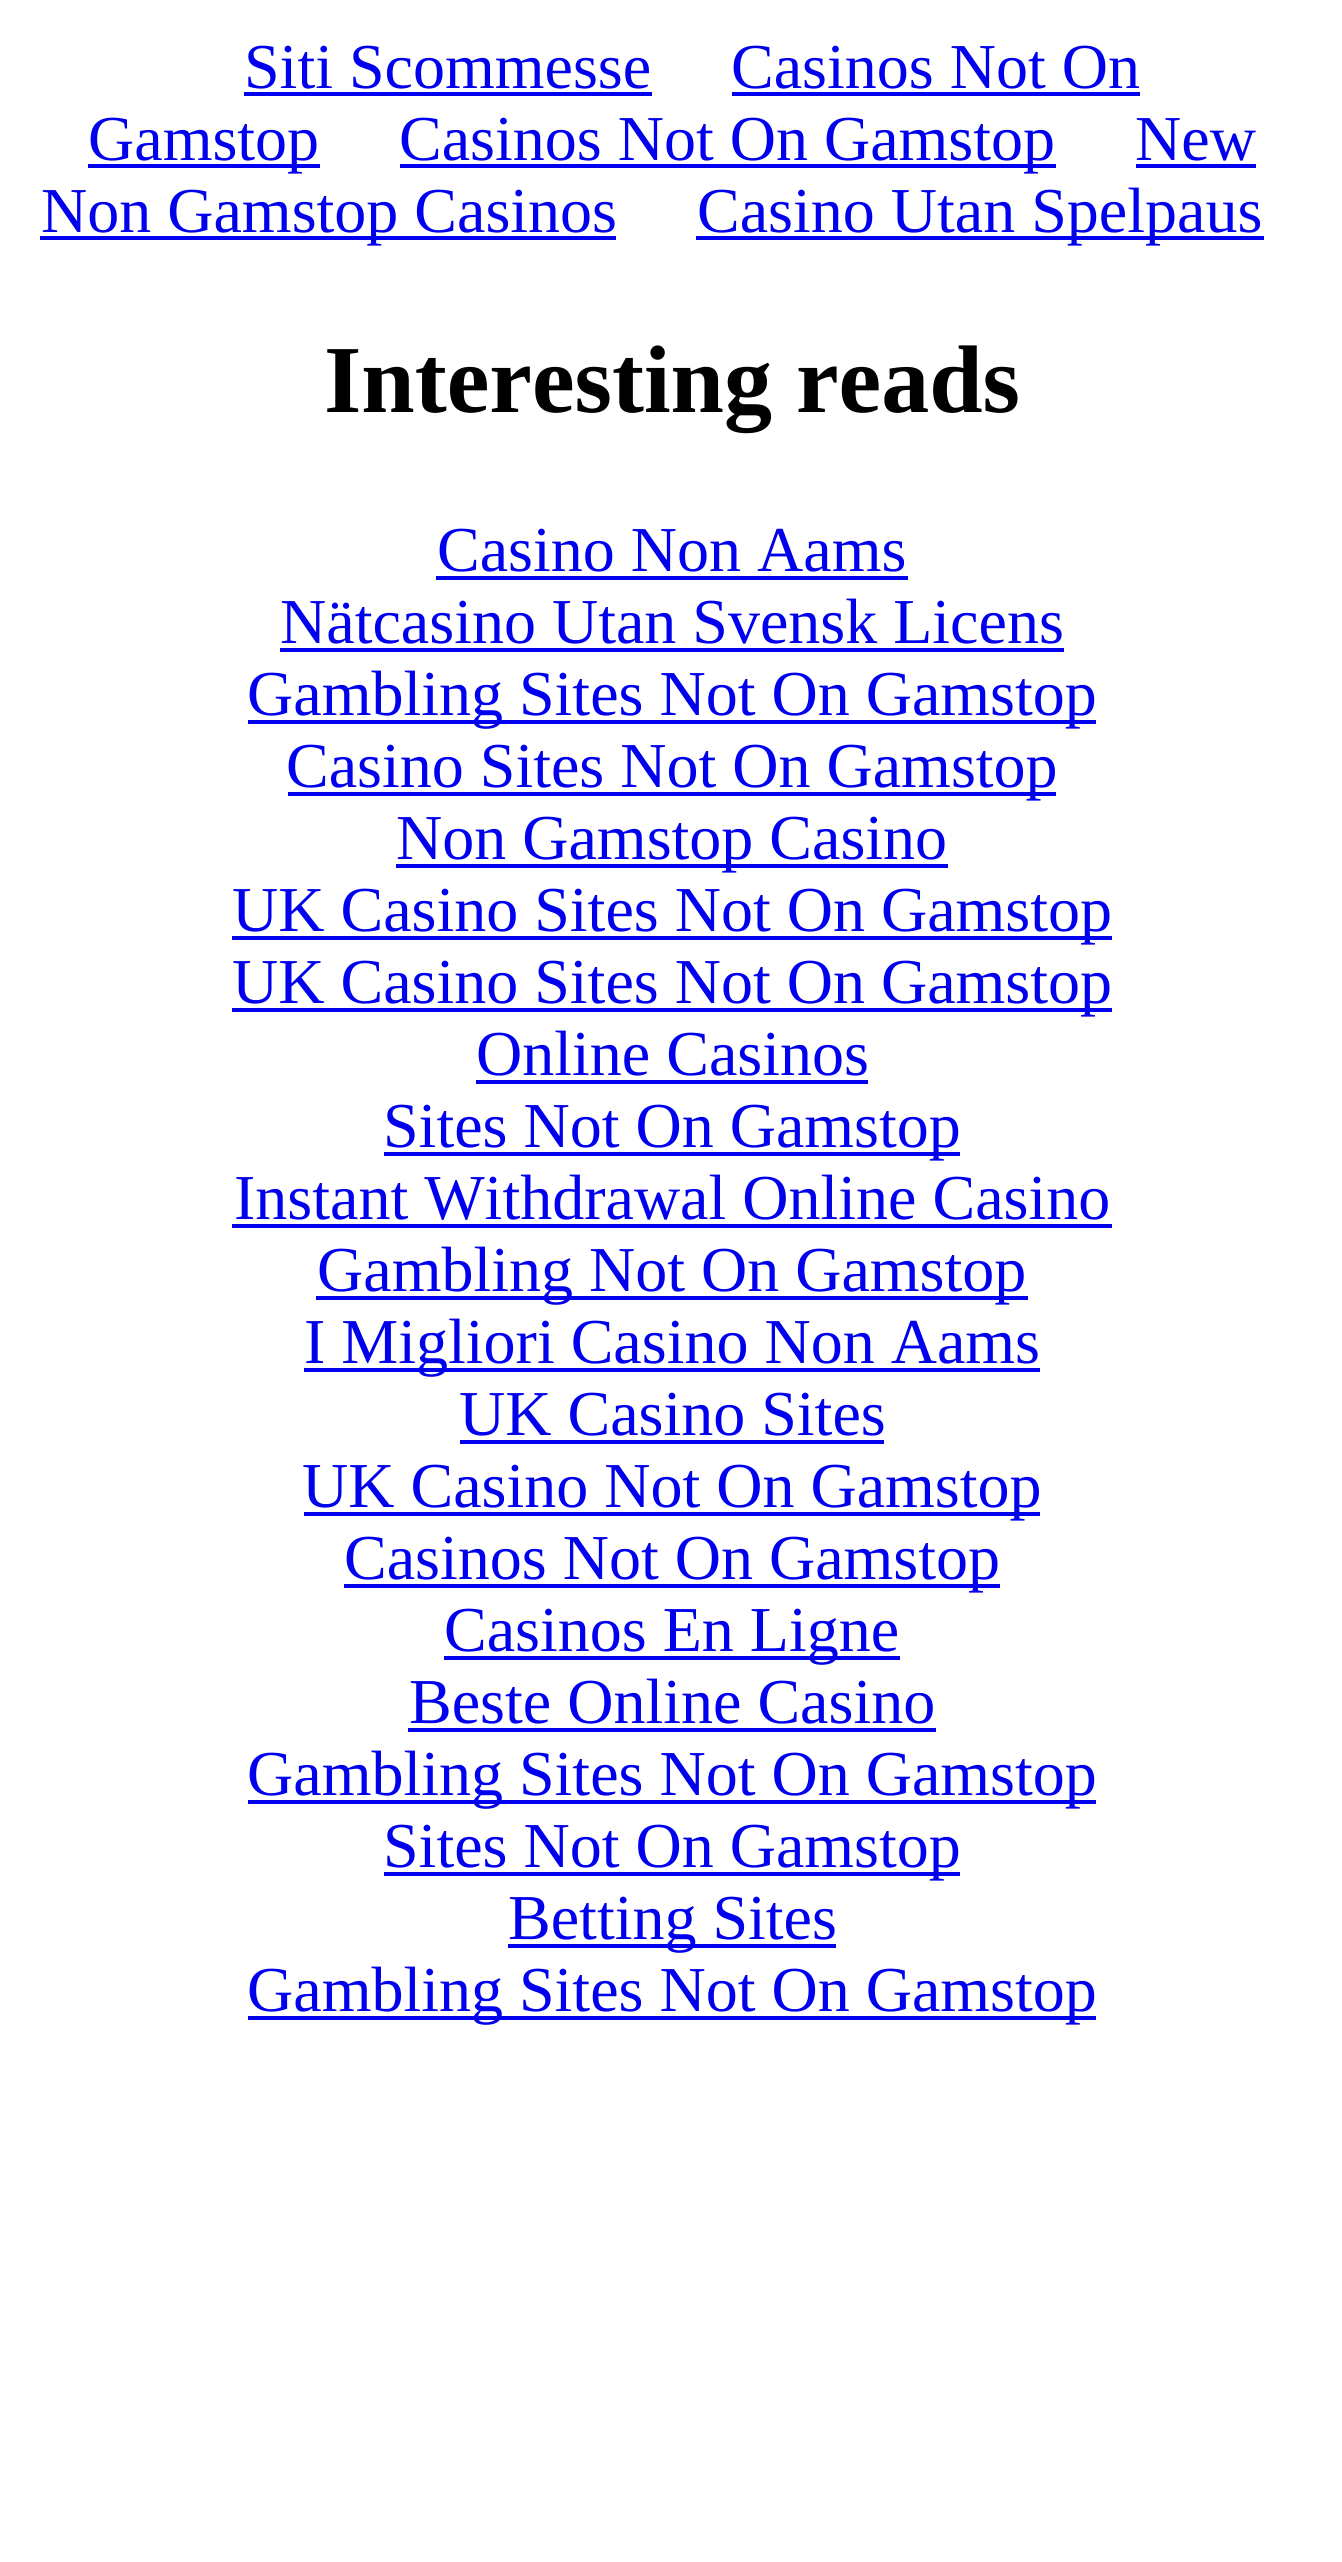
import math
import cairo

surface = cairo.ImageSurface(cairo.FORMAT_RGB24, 1342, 2562)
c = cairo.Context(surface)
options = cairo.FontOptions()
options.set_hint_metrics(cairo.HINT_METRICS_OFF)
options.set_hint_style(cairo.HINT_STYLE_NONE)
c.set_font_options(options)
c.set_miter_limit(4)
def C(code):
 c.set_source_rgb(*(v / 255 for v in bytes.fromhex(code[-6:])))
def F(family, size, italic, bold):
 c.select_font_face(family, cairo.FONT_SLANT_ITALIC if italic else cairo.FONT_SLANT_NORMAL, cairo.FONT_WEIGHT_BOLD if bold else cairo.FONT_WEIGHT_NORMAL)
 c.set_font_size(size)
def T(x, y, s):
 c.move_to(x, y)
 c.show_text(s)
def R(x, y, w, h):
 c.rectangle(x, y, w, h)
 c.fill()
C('ffffff')
c.paint()
F('Liberation Serif',64,0,0)
C('0000ee')
T(244,88,'Siti Scommesse')
R(244,92,408,4)
T(731,88,'Casinos Not On')
R(732,92,408,4)
R(88,164,232,4)
T(88,160,'Gamstop')
R(400,164,656,4)
T(399,160,'Casinos Not On Gamstop')
T(1135,160,'New')
R(1136,164,120,4)
R(40,236,576,4)
T(41,232,'Non Gamstop Casinos')
R(696,236,568,4)
T(697,232,'Casino Utan Spelpaus')
F('Liberation Serif',96,0,1)
C('000000')
T(324,412,'Interesting reads')
F('Liberation Serif',64,0,0)
C('0000ee')
T(437,571,'Casino Non Aams')
R(436,576,472,4)
T(280,643,'Nätcasino Utan Svensk Licens')
R(280,648,784,4)
R(248,720,848,4)
T(247,715,'Gambling Sites Not On Gamstop')
R(288,792,768,4)
T(286,787,'Casino Sites Not On Gamstop')
R(396,864,552,4)
T(396,859,'Non Gamstop Casino')
R(232,936,880,4)
T(232,931,'UK Casino Sites Not On Gamstop')
R(232,1008,880,4)
T(232,1003,'UK Casino Sites Not On Gamstop')
T(476,1075,'Online Casinos')
R(476,1080,392,4)
R(384,1152,576,4)
T(383,1147,'Sites Not On Gamstop')
T(234,1219,'Instant Withdrawal Online Casino')
R(232,1224,880,4)
R(316,1296,712,4)
T(317,1291,'Gambling Not On Gamstop')
R(304,1368,736,4)
T(304,1363,'I Migliori Casino Non Aams')
T(459,1435,'UK Casino Sites')
R(460,1440,424,4)
R(304,1512,736,4)
T(302,1507,'UK Casino Not On Gamstop')
R(344,1584,656,4)
T(344,1579,'Casinos Not On Gamstop')
R(444,1656,456,4)
T(444,1651,'Casinos En Ligne')
T(409,1723,'Beste Online Casino')
R(408,1728,528,4)
R(248,1800,848,4)
T(247,1795,'Gambling Sites Not On Gamstop')
R(384,1872,576,4)
T(383,1867,'Sites Not On Gamstop')
R(508,1944,328,4)
T(508,1939,'Betting Sites')
R(248,2016,848,4)
T(247,2011,'Gambling Sites Not On Gamstop')
surface.write_to_png('o.png')
